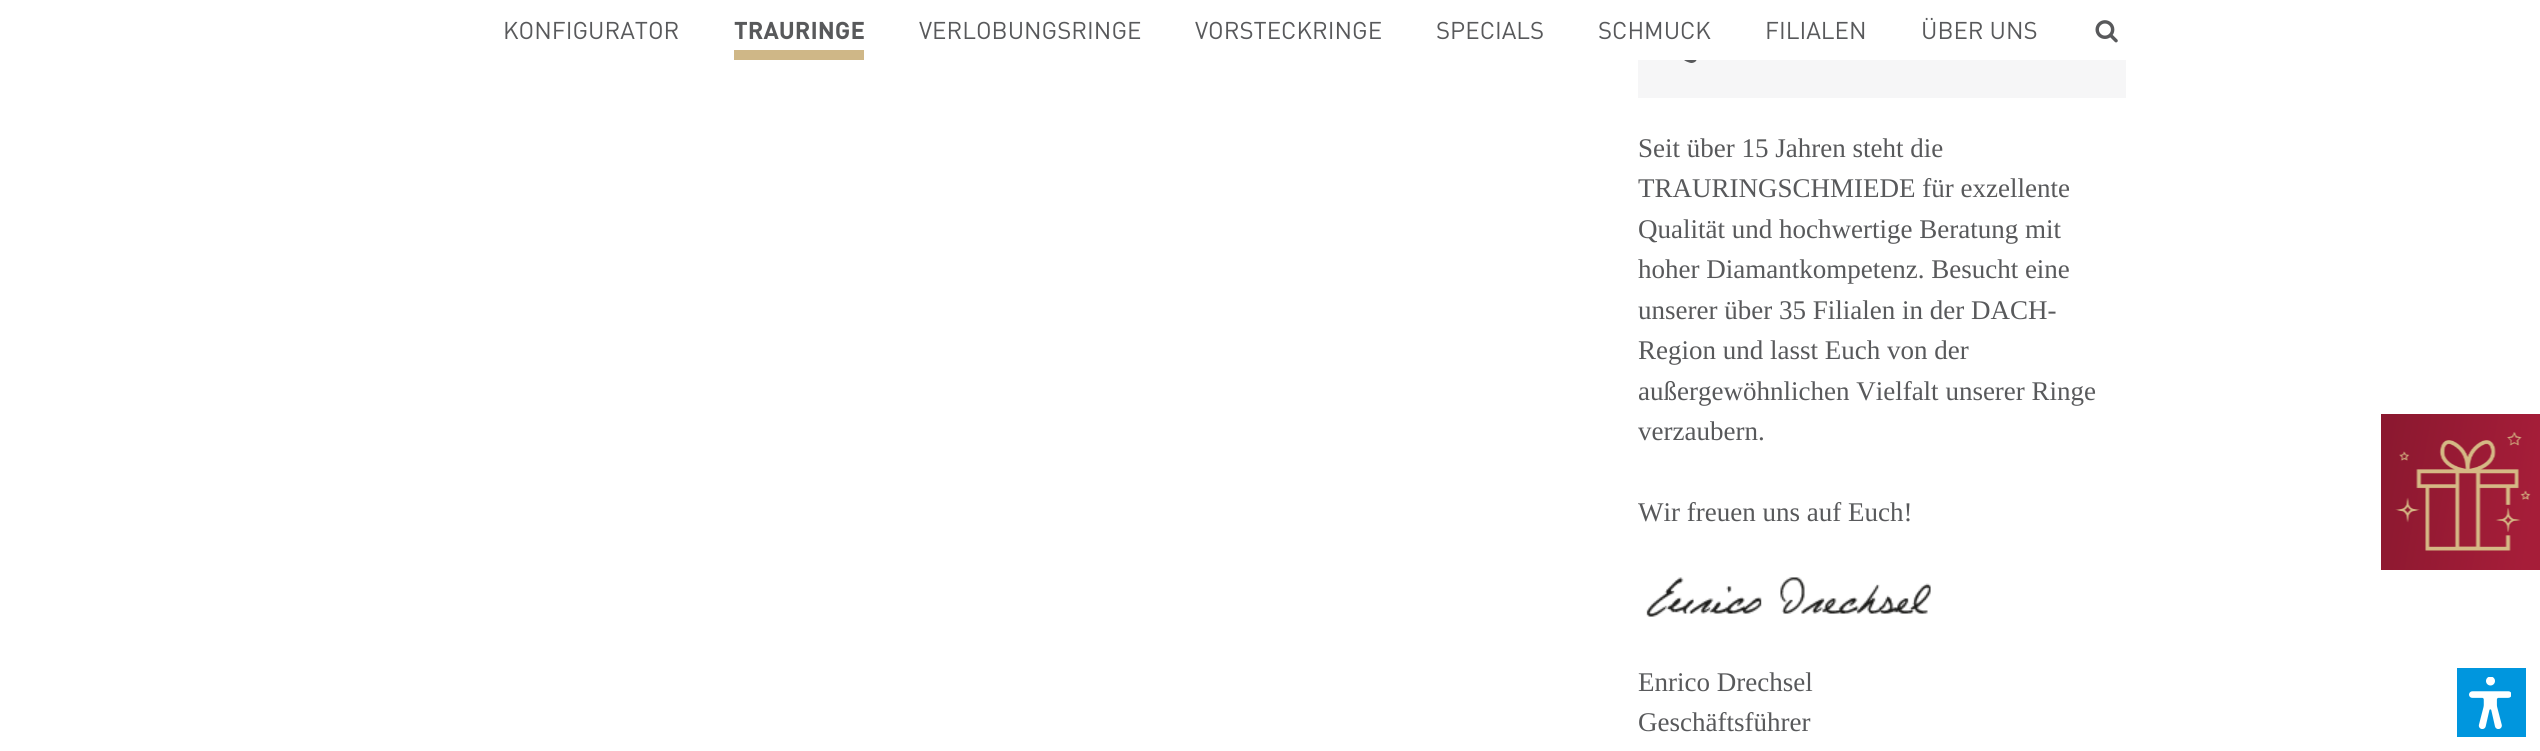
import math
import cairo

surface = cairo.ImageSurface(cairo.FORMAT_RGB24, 2540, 751)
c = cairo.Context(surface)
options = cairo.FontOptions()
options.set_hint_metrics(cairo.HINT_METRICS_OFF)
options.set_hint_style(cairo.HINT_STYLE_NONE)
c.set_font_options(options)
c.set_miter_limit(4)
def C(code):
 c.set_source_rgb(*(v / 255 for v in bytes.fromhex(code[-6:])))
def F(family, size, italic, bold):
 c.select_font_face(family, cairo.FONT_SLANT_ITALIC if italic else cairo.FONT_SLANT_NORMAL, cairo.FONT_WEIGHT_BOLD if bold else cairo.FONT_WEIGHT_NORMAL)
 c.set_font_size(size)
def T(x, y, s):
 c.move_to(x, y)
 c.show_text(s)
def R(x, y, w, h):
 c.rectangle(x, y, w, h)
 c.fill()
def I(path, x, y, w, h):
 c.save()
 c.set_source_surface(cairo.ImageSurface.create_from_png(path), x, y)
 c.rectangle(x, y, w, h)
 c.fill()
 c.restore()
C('ffffff')
c.paint()
F('DIN',24,0,0)
C('58595b')
T(503,39,'KONFIGURATOR')
C('cfb787')
R(734,50,130,10)
F('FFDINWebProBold',24,0,0)
C('58595b')
T(734,39,'TRAURINGE')
F('DIN',24,0,0)
T(919,39,'VERLOBUNGSRINGE')
T(1195,39,'VORSTECKRINGE')
T(1436,39,'SPECIALS')
T(1598,39,'SCHMUCK')
T(1765,39,'FILIALEN')
T(1921,39,'ÜBER UNS')
I('1.png',2095,20,23,23)
C('f6f6f7')
R(1638,60,488,38)
I('2.png',1684,60,13,3)
F('Liberation Serif',27,0,0)
C('58595b')
T(1638,157,'Seit über 15 Jahren steht die')
T(1638,197,'TRAURINGSCHMIEDE für exzellente')
T(1638,238,'Qualität und hochwertige Beratung mit')
T(1638,278,'hoher Diamantkompetenz. Besucht eine')
T(1638,319,'unserer über 35 Filialen in der DACH-')
T(1638,359,'Region und lasst Euch von der')
T(1638,400,'außergewöhnlichen Vielfalt unserer Ringe')
T(1638,440,'verzaubern.')
T(1638,521,'Wir freuen uns auf Euch!')
I('3.png',1646,577,285,40)
T(1638,691,'Enrico Drechsel')
T(1638,731,'Geschäftsführer')
gradient = cairo.LinearGradient(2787,528,2373,456)
gradient.add_color_stop_rgba(0,0.541,0.094,0.184,1)
gradient.add_color_stop_rgba(.35,0.651,0.114,0.224,1)
gradient.add_color_stop_rgba(.6,0.651,0.114,0.224,1)
gradient.add_color_stop_rgba(1,0.541,0.094,0.184,1)
c.set_source(gradient)
R(2381,414,159,156)
I('4.png',2395,432,136,119)
C('0096de')
R(2457,668,69,69)
I('5.png',2469,677,42,52)
surface.write_to_png('o.png')
